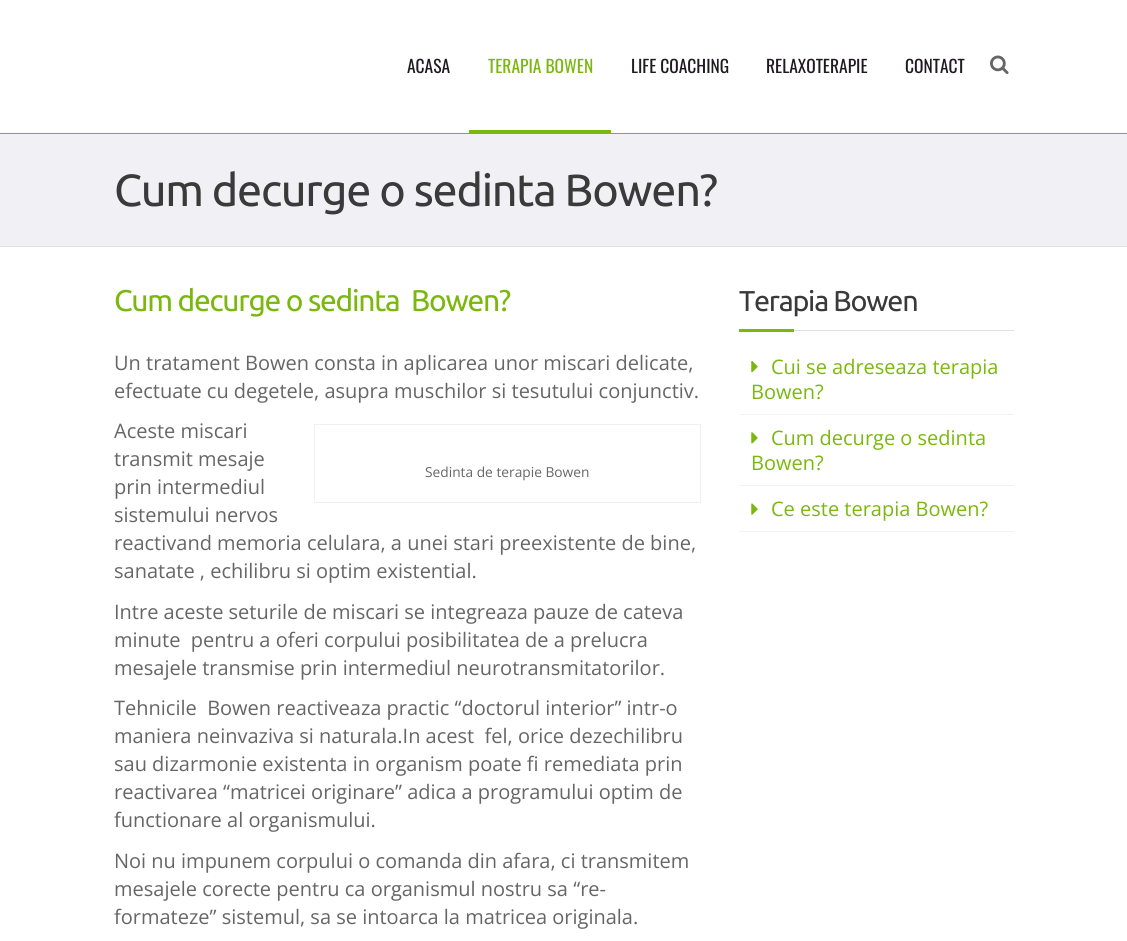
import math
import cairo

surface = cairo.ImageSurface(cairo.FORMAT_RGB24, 1127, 941)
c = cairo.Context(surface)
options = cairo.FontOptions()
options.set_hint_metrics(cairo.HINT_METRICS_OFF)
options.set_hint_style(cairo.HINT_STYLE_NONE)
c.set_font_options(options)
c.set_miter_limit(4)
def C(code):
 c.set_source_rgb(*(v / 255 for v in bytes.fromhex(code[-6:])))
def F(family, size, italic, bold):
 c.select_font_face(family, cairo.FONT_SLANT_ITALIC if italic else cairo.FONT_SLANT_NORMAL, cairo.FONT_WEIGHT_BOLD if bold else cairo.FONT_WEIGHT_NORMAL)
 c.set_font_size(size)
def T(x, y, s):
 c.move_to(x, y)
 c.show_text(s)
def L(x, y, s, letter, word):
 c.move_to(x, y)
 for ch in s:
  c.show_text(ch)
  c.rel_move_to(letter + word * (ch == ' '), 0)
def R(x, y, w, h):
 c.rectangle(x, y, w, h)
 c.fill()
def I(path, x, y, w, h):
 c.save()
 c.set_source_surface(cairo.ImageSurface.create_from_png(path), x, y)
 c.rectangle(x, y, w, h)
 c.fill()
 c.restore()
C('ffffff')
c.paint()
C('7ab80e')
R(0,133,1127,1)
F('Oswald',17.5,0,0)
C('1f1a1f')
T(407,73,'ACASA')
C('7ab80e')
R(469,130,142,3)
T(488,73,'TERAPIA BOWEN')
C('1f1a1f')
T(631,73,'LIFE COACHING')
T(766,73,'RELAXOTERAPIE')
T(905,73,'CONTACT')
I('1.png',990,55,19,20)
C('f1f0f5')
R(0,134,1127,112)
F('Ubuntu',45,0,0)
C('3a3a3a')
L(114,206,'Cum decurge o sedinta Bowen?',-1.25,0)
C('e0e0e0')
R(0,246,1127,1)
F('Ubuntu',30,0,0)
C('7ab80e')
L(114,311,'Cum decurge o sedinta  Bowen?',-1.25,0)
F('Open Sans',20,0,0)
C('666666')
T(114,370,'Un tratament Bowen consta in aplicarea unor miscari delicate,')
T(114,398,'efectuate cu degetele, asupra muschilor si tesutului conjunctiv.')
T(114,438,'Aceste miscari')
T(114,466,'transmit mesaje')
T(114,494,'prin intermediul')
T(114,522,'sistemului nervos')
T(114,550,'reactivand memoria celulara, a unei stari preexistente de bine,')
T(114,578,'sanatate , echilibru si optim existential.')
c.rectangle(314.5,424.5,386,78)
C('f0f0f0')
c.set_line_width(1)
c.stroke()
F('Open Sans',13.75,0,0)
C('666666')
T(425,477,'Sedinta de terapie Bowen')
F('Open Sans',20,0,0)
T(114,619,'Intre aceste seturile de miscari se integreaza pauze de cateva')
T(114,647,'minute  pentru a oferi corpului posibilitatea de a prelucra')
T(114,675,'mesajele transmise prin intermediul neurotransmitatorilor.')
T(114,715,'Tehnicile  Bowen reactiveaza practic “doctorul interior” intr-o')
T(114,743,'maniera neinvaziva si naturala.In acest  fel, orice dezechilibru')
T(114,771,'sau dizarmonie existenta in organism poate fi remediata prin')
T(114,799,'reactivarea “matricei originare” adica a programului optim de')
T(114,827,'functionare al organismului.')
T(114,868,'Noi nu impunem corpului o comanda din afara, ci transmitem')
T(114,896,'mesajele corecte pentru ca organismul nostru sa “re-')
T(114,924,'formateze” sistemul, sa se intoarca la matricea originala.')
F('Ubuntu',28.75,0,0)
C('3a3a3a')
L(739,311,'Terapia Bowen',-1.25,0)
C('7ab80e')
R(739,329,55,3)
C('e1e1e1')
R(794,330,220,1)
C('f2f2f2')
R(739,414,275,1)
I('2.png',751,361,7,12)
F('Open Sans',20,0,0)
C('7ab80e')
T(771,374,'Cui se adreseaza terapia')
T(751,399,'Bowen?')
C('f2f2f2')
R(739,485,275,1)
I('3.png',751,432,7,12)
C('7ab80e')
T(771,445,'Cum decurge o sedinta')
T(751,470,'Bowen?')
C('f2f2f2')
R(739,531,275,1)
I('4.png',751,503,7,12)
C('7ab80e')
T(771,516,'Ce este terapia Bowen?')
surface.write_to_png('o.png')
